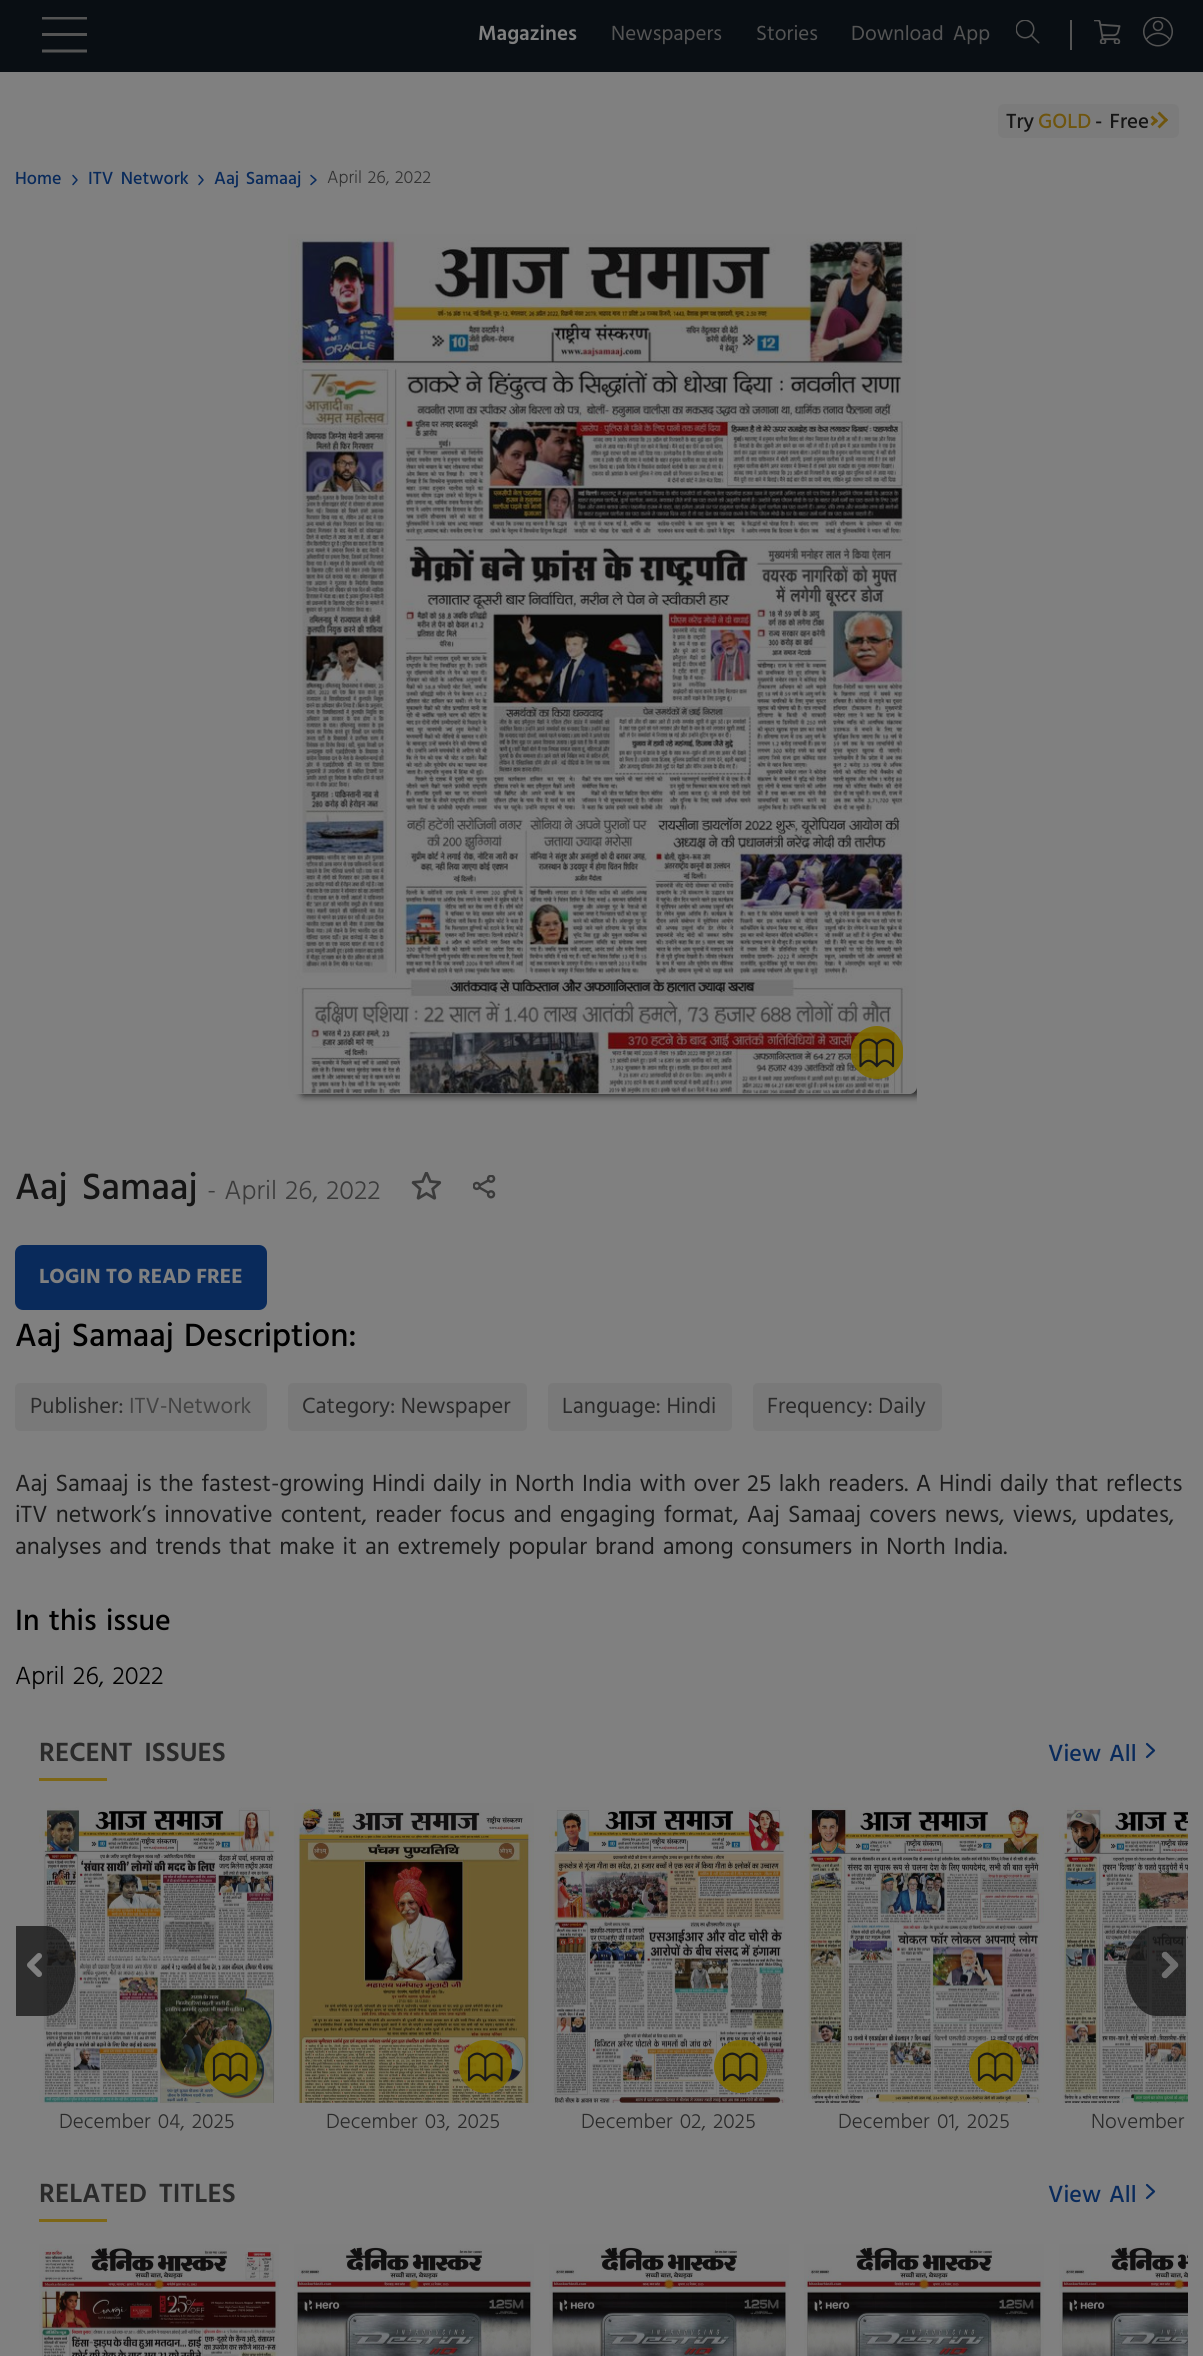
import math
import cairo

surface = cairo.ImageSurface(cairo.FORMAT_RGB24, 1203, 2356)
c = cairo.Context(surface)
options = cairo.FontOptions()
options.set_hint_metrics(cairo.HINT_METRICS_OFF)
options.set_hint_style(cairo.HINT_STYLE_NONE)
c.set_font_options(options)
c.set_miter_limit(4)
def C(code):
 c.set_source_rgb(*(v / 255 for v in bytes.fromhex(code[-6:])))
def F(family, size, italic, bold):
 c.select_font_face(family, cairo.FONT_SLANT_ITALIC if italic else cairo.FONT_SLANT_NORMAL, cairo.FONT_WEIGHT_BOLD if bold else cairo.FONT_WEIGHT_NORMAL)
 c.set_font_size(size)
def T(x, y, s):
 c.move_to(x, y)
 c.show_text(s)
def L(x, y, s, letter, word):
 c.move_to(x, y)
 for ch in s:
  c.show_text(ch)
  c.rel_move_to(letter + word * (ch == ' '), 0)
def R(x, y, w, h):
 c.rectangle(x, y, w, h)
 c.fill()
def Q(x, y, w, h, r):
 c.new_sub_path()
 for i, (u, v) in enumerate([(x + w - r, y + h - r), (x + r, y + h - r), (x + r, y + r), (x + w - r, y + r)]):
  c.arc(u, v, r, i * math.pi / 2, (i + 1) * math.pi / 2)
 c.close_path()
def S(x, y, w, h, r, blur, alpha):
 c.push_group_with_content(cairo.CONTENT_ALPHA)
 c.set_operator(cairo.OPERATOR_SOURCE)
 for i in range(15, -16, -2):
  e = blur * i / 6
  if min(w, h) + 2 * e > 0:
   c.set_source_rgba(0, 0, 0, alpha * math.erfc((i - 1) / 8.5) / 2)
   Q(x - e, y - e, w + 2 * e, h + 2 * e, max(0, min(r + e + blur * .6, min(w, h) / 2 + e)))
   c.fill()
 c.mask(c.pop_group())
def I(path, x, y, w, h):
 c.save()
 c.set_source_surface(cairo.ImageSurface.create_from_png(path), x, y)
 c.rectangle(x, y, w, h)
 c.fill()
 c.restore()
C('808080')
c.paint()
C('090e13')
R(0,0,1203,72)
c.save()
c.rectangle(42,17,45,36)
c.clip()
c.new_path()
c.move_to(42,18)
c.line_to(87,18)
C('545454')
c.set_line_width(3)
c.stroke()
c.restore()
C('545454')
R(42,33,45,3)
c.new_path()
c.move_to(42,51)
c.line_to(87,51)
c.set_line_width(3)
c.stroke()
F('Hind SemiBold',21,0,0)
C('808080')
T(478,40,'Magazines')
F('Hind',21,0,0)
C('545454')
T(611,40,'Newspapers')
T(756,40,'Stories')
L(851,40,'Download App',0,4)
R(1070,20,2,30)
I('1.png',1016,20,24,24)
I('2.png',1094,20,27,24)
I('3.png',1143,17,30,30)
C('7b7b7b')
Q(998,104,181,34,6)
c.fill()
F('Hind Medium',21,0,0)
C('151515')
T(1006,128,'Try')
C('6f550e')
T(1038,128,'GOLD')
C('151515')
L(1095,128,'- Free',0,2)
C('6f550e')
c.new_path()
c.move_to(1158,121)
c.line_to(1152.5,126)
c.line_to(1150.5,124)
c.line_to(1156,118.5)
c.close_path()
c.fill()
c.new_path()
c.move_to(1158,121)
c.line_to(1156,123)
c.line_to(1150.5,117.5)
c.line_to(1152.5,115.5)
c.close_path()
c.fill()
c.new_path()
c.move_to(1168,120)
c.line_to(1159.5,128.5)
c.line_to(1157.5,126.5)
c.line_to(1166,118)
c.close_path()
c.fill()
c.new_path()
c.move_to(1168,120)
c.line_to(1166,122)
c.line_to(1157.5,113.5)
c.line_to(1159.5,111.5)
c.close_path()
c.fill()
F('Hind Medium',18,0,0)
C('092a5b')
T(15,184,'Home')
c.new_path()
c.move_to(73,184.5)
c.line_to(77,180)
c.line_to(73,175.5)
c.set_line_width(1.5)
c.set_line_cap(cairo.LINE_CAP_ROUND)
c.set_line_join(cairo.LINE_JOIN_ROUND)
c.stroke()
L(88,184,'ITV Network',0,3)
c.new_path()
c.move_to(199,184.5)
c.line_to(203,180)
c.line_to(199,175.5)
c.stroke()
L(214,184,'Aaj Samaaj',0,2)
c.new_path()
c.move_to(311,184.5)
c.line_to(316,180)
c.line_to(311,175.5)
c.stroke()
F('Hind Light',18,0,0)
C('323232')
L(327,183,'April 26, 2022',0,1)
c.save()
c.rectangle(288,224,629,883)
c.clip()
c.set_fill_rule(cairo.FILL_RULE_EVEN_ODD)
c.new_path()
c.move_to(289,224)
c.line_to(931,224)
c.line_to(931,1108)
c.line_to(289,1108)
c.close_path()
c.move_to(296,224)
c.line_to(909,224)
c.curve_to(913.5,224,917,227.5,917,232)
c.line_to(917,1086)
c.curve_to(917,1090.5,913.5,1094,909,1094)
c.line_to(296,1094)
c.curve_to(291.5,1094,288,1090.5,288,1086)
c.line_to(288,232)
c.curve_to(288,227.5,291.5,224,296,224)
c.close_path()
c.clip()
C('1a1a1a')
S(302,237,616,858,1.5,4,1)
c.restore()
I('4.png',288,234,629,860)
I('5.png',851,1026,52,53)
F('Hind Medium',37.5,0,0)
C('151515')
L(15,1199,'Aaj Samaaj',0,5)
F('Hind Light',27,0,0)
C('3b3b3b')
L(207,1199,'- April 26, 2022',0,1.5)
I('6.png',411,1172,31,28)
I('7.png',473,1175,23,24)
C('092a5b')
Q(15,1245,252,65,8)
c.fill()
F('Hind',21,0,1)
C('808080')
T(39,1283,'LOGIN TO READ FREE')
F('Hind Medium',33,0,0)
C('000000')
L(15,1346,'Aaj Samaaj',0,2.4)
T(184,1346,'Description:')
C('797979')
Q(15,1383,252,48,5)
c.fill()
F('Hind',22.5,0,0)
C('2a2a2a')
T(30,1413,'Publisher:')
C('434343')
T(129,1413,'ITV-Network')
C('797979')
Q(288,1383,239,48,5)
c.fill()
C('2a2a2a')
T(302,1413,'Category: Newspaper')
C('797979')
Q(548,1383,184,48,5)
c.fill()
C('2a2a2a')
T(562,1413,'Language: Hindi')
C('797979')
Q(753,1383,189,48,5)
c.fill()
C('2a2a2a')
T(767,1413,'Frequency: Daily')
F('Hind',24,0,0)
C('1b1b1b')
L(15,1491,'Aaj Samaaj is the fastest-growing Hindi daily in North India with over 25 lakh readers. A Hindi daily that reflects',0,1.75)
L(15,1522,'iTV network’s innovative content, reader focus and engaging format, Aaj Samaaj covers news, views, updates,',0,2.4)
L(15,1554,'analyses and trends that make it an extremely popular brand among consumers in North India.',0,2)
F('Hind Medium',30,0,0)
C('000000')
L(15,1630,'In this issue',0,2)
F('Hind Light',25.5,0,0)
L(15,1684,'April 26, 2022',0,2)
F('Hind SemiBold',27,0,0)
C('2a2a2a')
L(39,1761,'RECENT ISSUES',0,5)
C('7d6617')
R(39,1778,68,3)
F('Hind Medium',24,0,0)
C('092a5b')
L(1048,1761,'View All',0,2)
c.new_path()
c.move_to(1147,1757)
c.line_to(1154,1750.5)
c.line_to(1147,1744)
c.set_line_width(2.2)
c.stroke()
I('8.png',39,1803,240,300)
c.set_source_rgba(0.102,0.102,0.102,0.8)
c.new_path()
c.move_to(16,1926)
c.line_to(46,1926)
c.curve_to(62,1926,75,1946,75,1971)
c.curve_to(75,1996,62,2016,46,2016)
c.line_to(16,2016)
c.close_path()
c.fill()
c.new_path()
c.move_to(39,1974)
c.line_to(30,1965)
c.line_to(39,1956)
C('808080')
c.set_line_width(6)
c.stroke()
I('16.png',1059,1803,129,300)
c.set_source_rgba(0.102,0.102,0.102,0.8)
c.new_path()
c.move_to(1156,1926)
c.line_to(1186,1926)
c.line_to(1186,2016)
c.line_to(1156,2016)
c.curve_to(1140,2016,1126,1996,1126,1971)
c.curve_to(1126,1946,1140,1926,1156,1926)
c.close_path()
c.fill()
c.new_path()
c.move_to(1165,1975)
c.line_to(1175,1965)
c.line_to(1165,1955)
c.set_source_rgba(0.502,0.502,0.502,0.8)
c.set_line_width(6.5)
c.stroke()
I('9.png',204,2040,53,53)
F('Hind Light',21,0,0)
C('2a2a2a')
L(59,2128,'December 04, 2025',0,2)
I('10.png',294,1803,240,300)
I('11.png',459,2040,53,53)
L(326,2128,'December 03, 2025',0,2)
I('12.png',549,1803,240,300)
I('13.png',714,2040,53,53)
L(581,2128,'December 02, 2025',0,2)
I('14.png',804,1803,240,300)
I('15.png',969,2040,53,53)
L(838,2128,'December 01, 2025',0,2.4)
L(1091,2128,'November',0,2)
F('Hind SemiBold',27,0,0)
L(39,2202,'RELATED TITLES',0,5)
C('7d6617')
R(39,2219,68,3)
F('Hind Medium',24,0,0)
C('092a5b')
L(1048,2202,'View All',0,2)
c.new_path()
c.move_to(1147,2198)
c.line_to(1154,2191.5)
c.line_to(1147,2185)
c.set_line_width(2.2)
c.stroke()
I('17.png',39,2244,240,112)
I('18.png',294,2244,240,112)
I('19.png',549,2244,240,112)
I('20.png',804,2244,240,112)
I('21.png',1059,2244,129,112)
surface.write_to_png('o.png')
